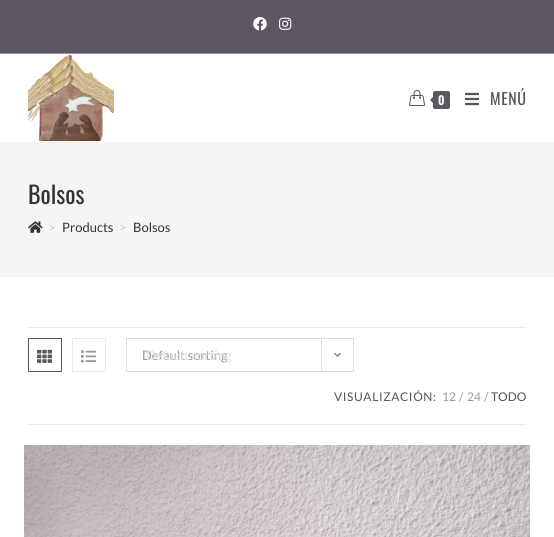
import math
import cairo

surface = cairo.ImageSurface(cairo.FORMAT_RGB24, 554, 537)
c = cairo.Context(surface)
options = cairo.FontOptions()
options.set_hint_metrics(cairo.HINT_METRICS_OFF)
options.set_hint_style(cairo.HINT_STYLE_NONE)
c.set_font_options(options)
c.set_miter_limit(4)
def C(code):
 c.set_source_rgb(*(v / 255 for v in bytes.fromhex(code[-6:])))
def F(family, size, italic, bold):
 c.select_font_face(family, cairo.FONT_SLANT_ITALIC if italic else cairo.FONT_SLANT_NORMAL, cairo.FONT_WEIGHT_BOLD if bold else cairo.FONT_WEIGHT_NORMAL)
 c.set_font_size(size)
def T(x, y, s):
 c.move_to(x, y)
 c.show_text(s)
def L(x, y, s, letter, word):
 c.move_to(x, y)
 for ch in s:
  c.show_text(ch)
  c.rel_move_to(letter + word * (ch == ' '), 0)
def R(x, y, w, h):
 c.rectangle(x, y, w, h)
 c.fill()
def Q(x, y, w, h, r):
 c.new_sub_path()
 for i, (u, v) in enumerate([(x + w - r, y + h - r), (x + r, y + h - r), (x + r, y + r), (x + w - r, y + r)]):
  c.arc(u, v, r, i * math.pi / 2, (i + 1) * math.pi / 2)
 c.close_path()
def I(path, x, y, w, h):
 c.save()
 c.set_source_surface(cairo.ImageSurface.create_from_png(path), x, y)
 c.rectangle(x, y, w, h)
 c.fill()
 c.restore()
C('ffffff')
c.paint()
C('5c5763')
R(0,0,554,53)
C('9b94a8')
R(0,53,554,1)
I('1.png',253,17,14,14)
I('2.png',279,17,13,13)
C('f1f1f1')
R(0,142,554,1)
I('3.png',28,55,86,86)
I('4.png',409,90,16,16)
C('5c5763')
Q(433,91,17,18,2)
c.fill()
c.new_path()
c.move_to(435,95)
c.line_to(435,105)
c.line_to(430,100)
c.close_path()
c.fill()
F('Oswald SemiBold',12,0,0)
C('ffffff')
L(438,105,'0',.6,0)
I('5.png',465,92,14,14)
F('Oswald',16,0,0)
C('555555')
L(490,105,'MENÚ',.6,0)
C('f5f5f5')
R(0,143,554,134)
F('Oswald',24,0,0)
C('333333')
T(28,204,'Bolsos')
I('6.png',28,221,15,12)
F('Lato',13,0,0)
C('c6c6c6')
T(48,232,'>')
C('333333')
T(62,232,'Products')
C('c6c6c6')
T(119,232,'>')
C('333333')
T(133,232,'Bolsos')
C('eaeaea')
R(28,327,498,1)
R(28,424,498,1)
c.rectangle(28.5,338.5,33,33)
C('5c5763')
c.set_line_width(1)
c.stroke()
I('7.png',37,349,15,14)
c.rectangle(72.5,338.5,33,33)
C('eaeaea')
c.stroke()
I('8.png',81,350,15,13)
c.rectangle(126.5,338.5,227,33)
C('dddddd')
c.stroke()
C('999999')
T(142,360,'Default sorting')
C('dddddd')
R(321,339,1,32)
I('9.png',334,352,7,5)
C('e1e1e1')
T(146,360,'Default sorting')
F('Lato',12,0,0)
C('555555')
L(334,401,'VISUALIZACIÓN:',.6,0)
C('999999')
T(442,401,'12')
T(459,401,'/')
T(467,401,'24')
T(484,401,'/')
C('555555')
T(491,401,'TODO')
I('10.png',24,445,506,92)
surface.write_to_png('o.png')
